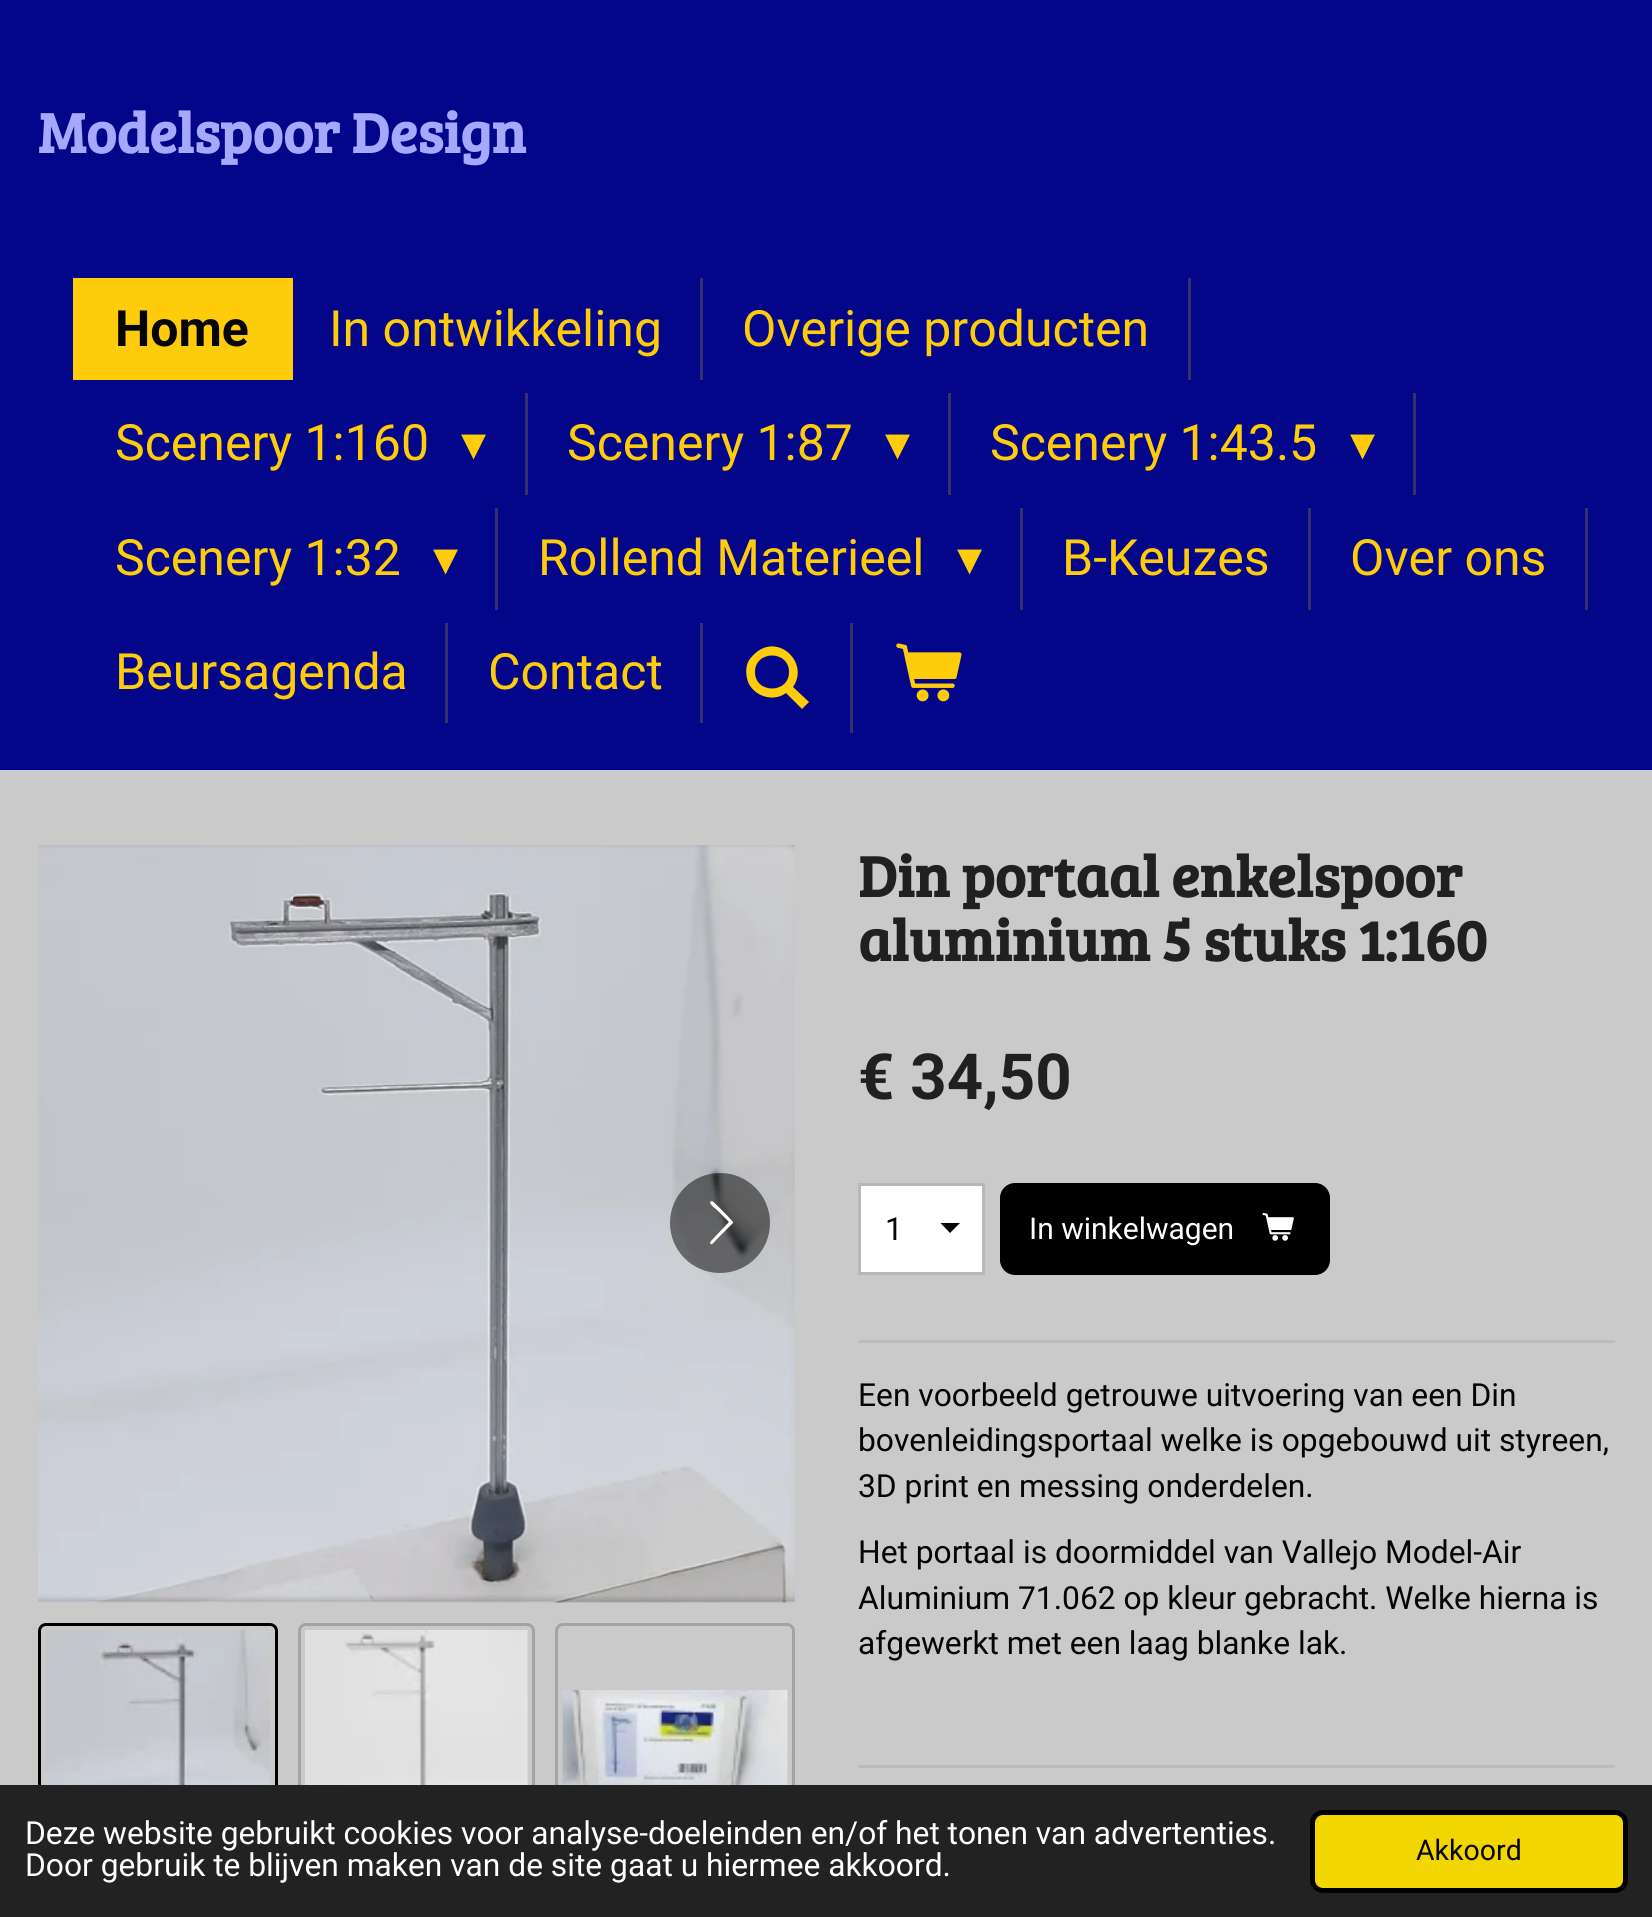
import math
import cairo

surface = cairo.ImageSurface(cairo.FORMAT_RGB24, 1652, 1917)
c = cairo.Context(surface)
options = cairo.FontOptions()
options.set_hint_metrics(cairo.HINT_METRICS_OFF)
options.set_hint_style(cairo.HINT_STYLE_NONE)
c.set_font_options(options)
c.set_miter_limit(4)
def C(code):
 c.set_source_rgb(*(v / 255 for v in bytes.fromhex(code[-6:])))
def F(family, size, italic, bold):
 c.select_font_face(family, cairo.FONT_SLANT_ITALIC if italic else cairo.FONT_SLANT_NORMAL, cairo.FONT_WEIGHT_BOLD if bold else cairo.FONT_WEIGHT_NORMAL)
 c.set_font_size(size)
def T(x, y, s):
 c.move_to(x, y)
 c.show_text(s)
def L(x, y, s, letter, word):
 c.move_to(x, y)
 for ch in s:
  c.show_text(ch)
  c.rel_move_to(letter + word * (ch == ' '), 0)
def R(x, y, w, h):
 c.rectangle(x, y, w, h)
 c.fill()
def Q(x, y, w, h, r):
 c.new_sub_path()
 for i, (u, v) in enumerate([(x + w - r, y + h - r), (x + r, y + h - r), (x + r, y + r), (x + w - r, y + r)]):
  c.arc(u, v, r, i * math.pi / 2, (i + 1) * math.pi / 2)
 c.close_path()
def I(path, x, y, w, h):
 c.save()
 c.set_source_surface(cairo.ImageSurface.create_from_png(path), x, y)
 c.rectangle(x, y, w, h)
 c.fill()
 c.restore()
C('cacaca')
c.paint()
C('030688')
R(0,0,1652,770)
F('Bree Serif',57.5,0,1)
C('a6a8fd')
T(38,153,'Modelspoor Design')
C('ffcc0b')
R(73,278,220,102)
F('Roboto',50,0,1)
C('050505')
T(115,346,'Home')
F('Roboto',50,0,0)
C('ffcc0b')
T(329,346,'In ontwikkeling')
C('352e6f')
R(700,278,3,102)
C('ffcc0b')
T(742,346,'Overige producten')
C('352e6f')
R(1188,278,3,102)
C('ffcc0b')
T(115,460,'Scenery 1:160')
F('DejaVu Sans',50,0,0)
T(461,460,'▾')
C('352e6f')
R(525,393,3,102)
F('Roboto',50,0,0)
C('ffcc0b')
T(567,460,'Scenery 1:87')
F('DejaVu Sans',50,0,0)
T(885,460,'▾')
C('352e6f')
R(948,393,3,102)
F('Roboto',50,0,0)
C('ffcc0b')
T(990,460,'Scenery 1:43.5')
F('DejaVu Sans',50,0,0)
T(1350,460,'▾')
C('352e6f')
R(1413,393,3,102)
F('Roboto',50,0,0)
C('ffcc0b')
T(115,575,'Scenery 1:32')
F('DejaVu Sans',50,0,0)
T(433,575,'▾')
C('352e6f')
R(495,508,3,102)
F('Roboto',50,0,0)
C('ffcc0b')
T(538,575,'Rollend Materieel')
F('DejaVu Sans',50,0,0)
T(957,575,'▾')
C('352e6f')
R(1020,508,3,102)
F('Roboto',50,0,0)
C('ffcc0b')
T(1062,575,'B-Keuzes')
C('352e6f')
R(1308,508,3,102)
C('ffcc0b')
T(1350,575,'Over ons')
C('352e6f')
R(1585,508,3,102)
C('ffcc0b')
T(115,689,'Beursagenda')
C('352e6f')
R(445,623,3,100)
C('ffcc0b')
T(488,689,'Contact')
C('352e6f')
R(700,623,3,100)
C('ffcc0b')
c.new_path()
c.move_to(793,687)
c.line_to(809,702)
c.line_to(802,709)
c.line_to(786,693)
c.curve_to(774,702,756,697,749,684)
c.curve_to(746,678,745,669,748,662)
c.curve_to(750,658,754,654,758,651)
c.curve_to(781,635,809,664,793,687)
c.close_path()
c.move_to(789,672)
c.curve_to(789,650,755,650,755,672)
c.curve_to(755,694,789,694,789,672)
c.close_path()
c.fill()
C('352e6f')
R(850,623,3,110)
I('1.png',896,643,66,59)
I('2.png',38,845,757,758)
c.set_source_rgba(0,0,0,0.5)
c.arc(720,1223,50,0,2 * math.pi)
c.fill()
C('ffffff')
c.new_path()
c.move_to(711,1241)
c.line_to(729,1222)
c.line_to(717,1210)
c.curve_to(716,1209,706,1202,712,1201)
c.curve_to(713,1201,731,1219,733,1222)
c.line_to(733,1223)
c.line_to(716,1240)
c.curve_to(716,1240,711,1247,710,1243)
c.close_path()
c.fill()
Q(39.5,1624.5,237,234,6.5)
C('000000')
c.set_line_width(3)
c.stroke()
I('3.png',45,1630,225,155)
Q(299.5,1624.5,234,234,6.5)
C('a3a3a3')
c.stroke()
I('4.png',305,1630,223,155)
Q(556.5,1624.5,237,234,6.5)
c.stroke()
I('5.png',562,1690,226,95)
F('Bree Serif',58.75,0,1)
C('202020')
T(858,897,'Din portaal enkelspoor')
T(858,961,'aluminium 5 stuks 1:160')
F('Roboto',63.5,0,1)
T(858,1099,'€ 34,50')
C('ffffff')
R(861,1186,121,86)
C('050505')
c.new_path()
c.move_to(950,1233)
c.line_to(940.5,1223)
c.line_to(960,1223)
c.close_path()
c.fill()
c.rectangle(859.5,1184.5,124,89)
C('b8b8b8')
c.stroke()
F('Roboto',31.75,0,0)
C('050505')
T(885,1240,'1')
C('000000')
Q(1000,1183,330,92,15)
c.fill()
F('Roboto',30,0,0)
C('ffffff')
T(1029,1239,'In winkelwagen')
I('6.png',1262,1213,32,28)
C('bcbcbc')
R(858,1340,757,3)
F('Roboto',31.75,0,0)
C('050505')
T(858,1406,'Een voorbeeld getrouwe uitvoering van een Din')
T(858,1451,'bovenleidingsportaal welke is opgebouwd uit styreen,')
T(858,1497,'3D print en messing onderdelen.')
T(858,1563,'Het portaal is doormiddel van Vallejo Model-Air')
T(858,1609,'Aluminium 71.062 op kleur gebracht. Welke hierna is')
T(858,1654,'afgewerkt met een laag blanke lak.')
C('bcbcbc')
R(858,1765,757,3)
C('222222')
R(0,1785,1652,132)
C('ffffff')
L(25,1844,'Deze website gebruikt cookies voor analyse-doeleinden en/of het tonen van advertenties.',0,-.1)
T(25,1876,'Door gebruik te blijven maken van de site gaat u hiermee akkoord.')
C('f1d600')
Q(1312.5,1812.5,313,78,10.5)
c.fill_preserve()
C('000000')
c.set_line_width(5)
c.stroke()
F('Roboto',28.5,0,0)
C('050505')
T(1416,1860,'Akkoord')
surface.write_to_png('o.png')
